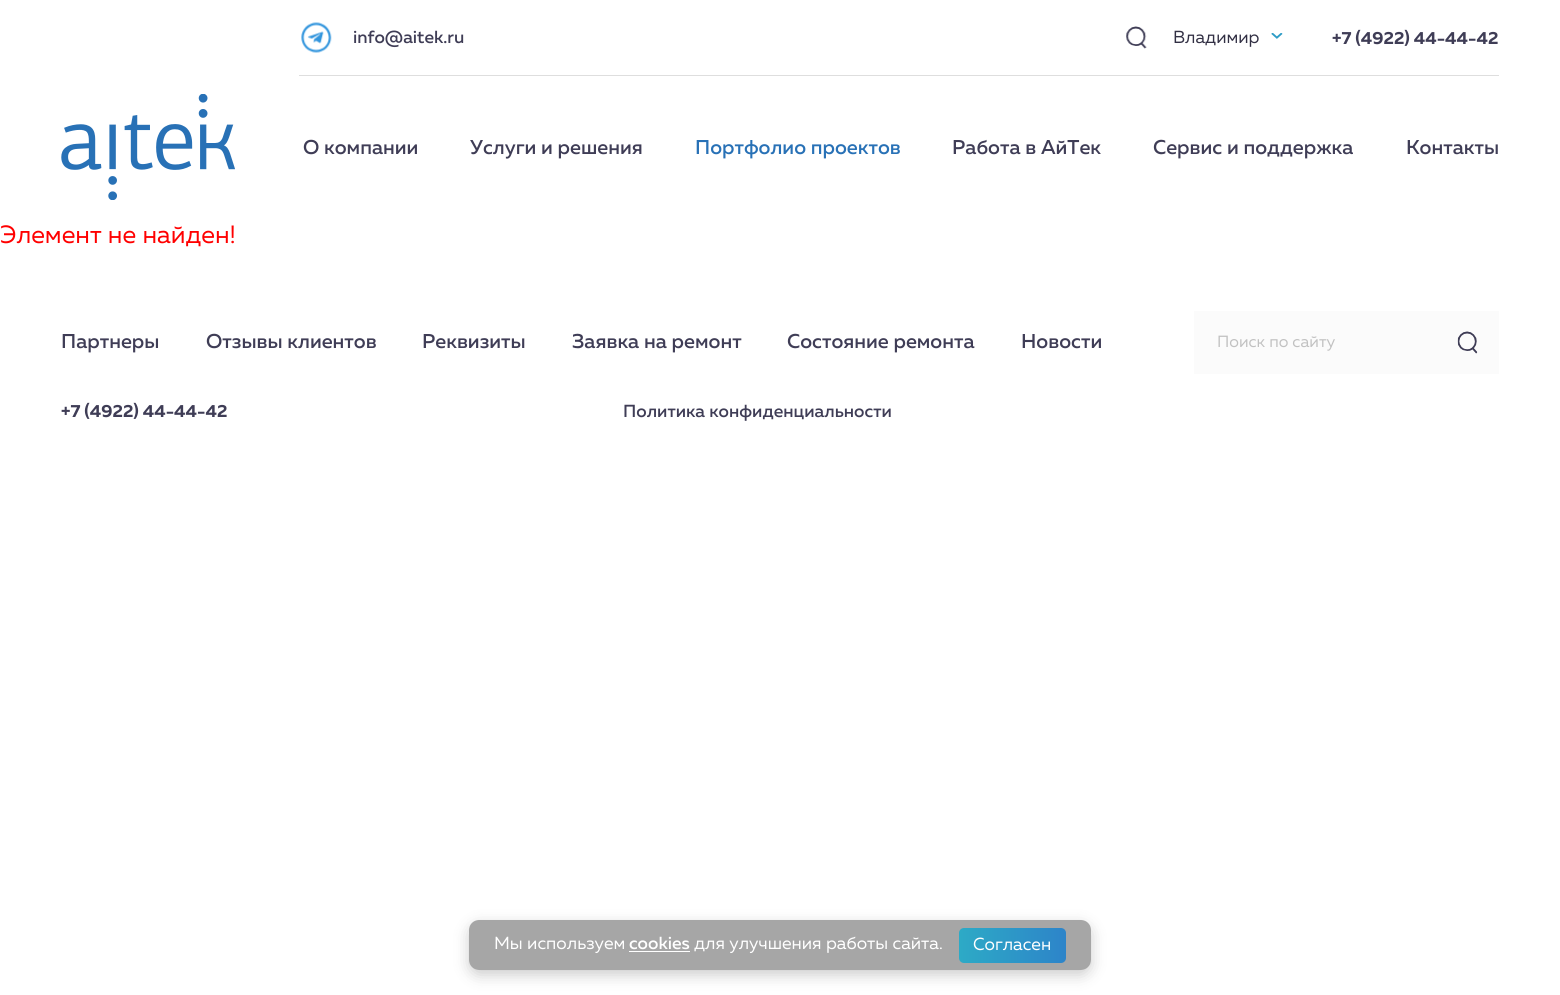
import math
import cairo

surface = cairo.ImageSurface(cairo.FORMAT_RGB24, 1560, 995)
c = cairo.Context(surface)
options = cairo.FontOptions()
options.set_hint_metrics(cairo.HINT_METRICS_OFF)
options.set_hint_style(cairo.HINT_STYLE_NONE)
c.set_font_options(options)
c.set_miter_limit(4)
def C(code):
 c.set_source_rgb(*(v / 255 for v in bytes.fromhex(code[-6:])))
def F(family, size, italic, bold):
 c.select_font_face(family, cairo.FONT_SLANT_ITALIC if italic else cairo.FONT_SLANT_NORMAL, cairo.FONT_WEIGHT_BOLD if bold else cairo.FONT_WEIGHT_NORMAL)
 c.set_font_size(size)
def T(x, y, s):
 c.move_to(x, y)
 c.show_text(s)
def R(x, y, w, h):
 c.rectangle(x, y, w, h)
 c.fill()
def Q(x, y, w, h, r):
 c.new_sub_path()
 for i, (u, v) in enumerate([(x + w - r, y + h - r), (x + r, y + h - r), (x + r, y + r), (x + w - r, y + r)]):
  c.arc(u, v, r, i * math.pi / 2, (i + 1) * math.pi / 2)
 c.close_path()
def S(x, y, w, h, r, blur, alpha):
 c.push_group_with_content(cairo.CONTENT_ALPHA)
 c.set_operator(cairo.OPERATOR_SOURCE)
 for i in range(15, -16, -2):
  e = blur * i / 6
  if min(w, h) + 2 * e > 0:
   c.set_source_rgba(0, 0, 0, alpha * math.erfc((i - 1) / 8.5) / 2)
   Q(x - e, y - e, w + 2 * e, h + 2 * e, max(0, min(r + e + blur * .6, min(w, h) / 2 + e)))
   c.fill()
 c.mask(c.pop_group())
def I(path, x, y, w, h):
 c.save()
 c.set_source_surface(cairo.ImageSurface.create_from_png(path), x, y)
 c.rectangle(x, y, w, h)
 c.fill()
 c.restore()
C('ffffff')
c.paint()
I('1.png',301,22,31,31)
F('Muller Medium',17.5,0,0)
C('3f3d56')
T(353,43,'info@aitek.ru')
I('2.png',1126,26,21,23)
F('Muller',17.5,0,0)
C('323044')
T(1173,43,'Владимир')
I('3.png',1271,33,12,6)
F('Muller',17.5,0,1)
C('3f3d56')
T(1332,44,'+7 (4922) 44-44-42')
C('dedede')
R(299,75,1200,1)
I('4.png',61,94,174,106)
F('Muller Medium',20,0,0)
C('3f3d56')
T(303,154,'О компании')
T(470,154,'Услуги и решения')
C('2871b6')
T(695,154,'Портфолио проектов')
C('3f3d56')
T(952,154,'Работа в АйТек')
T(1153,154,'Сервис и поддержка')
T(1406,154,'Контакты')
F('Muller',25,0,0)
C('ff0000')
T(0,243,'Элемент не найден!')
F('Muller Medium',20,0,0)
C('3f3d56')
T(61,348,'Партнеры')
T(206,348,'Отзывы клиентов')
T(422,348,'Реквизиты')
T(572,348,'Заявка на ремонт')
T(787,348,'Состояние ремонта')
T(1021,348,'Новости')
C('fbfbfb')
R(1194,311,305,63)
F('Muller',16.25,0,0)
C('c1c1c1')
T(1217,347,'Поиск по сайту')
I('5.png',1457,331,21,23)
F('Muller',17.5,0,1)
C('3f3d56')
T(61,417,'+7 (4922) 44-44-42')
F('Muller Medium',17.5,0,0)
T(623,417,'Политика конфиденциальности')
c.save()
c.set_fill_rule(cairo.FILL_RULE_EVEN_ODD)
c.new_path()
c.move_to(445,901)
c.line_to(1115,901)
c.line_to(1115,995)
c.line_to(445,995)
c.close_path()
c.move_to(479,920)
c.line_to(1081,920)
c.curve_to(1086.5,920,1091,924.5,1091,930)
c.line_to(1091,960)
c.curve_to(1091,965.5,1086.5,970,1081,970)
c.line_to(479,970)
c.curve_to(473.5,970,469,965.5,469,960)
c.line_to(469,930)
c.curve_to(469,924.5,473.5,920,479,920)
c.close_path()
c.clip()
C('000000')
S(469,925,622,50,10,7.5,.2)
c.restore()
c.set_source_rgba(0.133,0.133,0.133,0.4)
Q(469,920,622,50,10)
c.fill()
F('Muller',17.5,0,0)
C('ffffff')
T(494,949,'Мы используем')
F('Muller Medium',17.5,0,0)
T(629,949,'cookies')
R(629,951,61,1)
F('Muller',17.5,0,0)
T(694,949,'для улучшения работы сайта.')
gradient = cairo.LinearGradient(959,945,1066,945)
gradient.add_color_stop_rgba(0,0.176,0.667,0.776,1)
gradient.add_color_stop_rgba(1,0.176,0.518,0.788,1)
c.set_source(gradient)
Q(959,928,107,35,5)
c.fill()
C('ffffff')
T(973,950,'Согласен')
surface.write_to_png('o.png')
